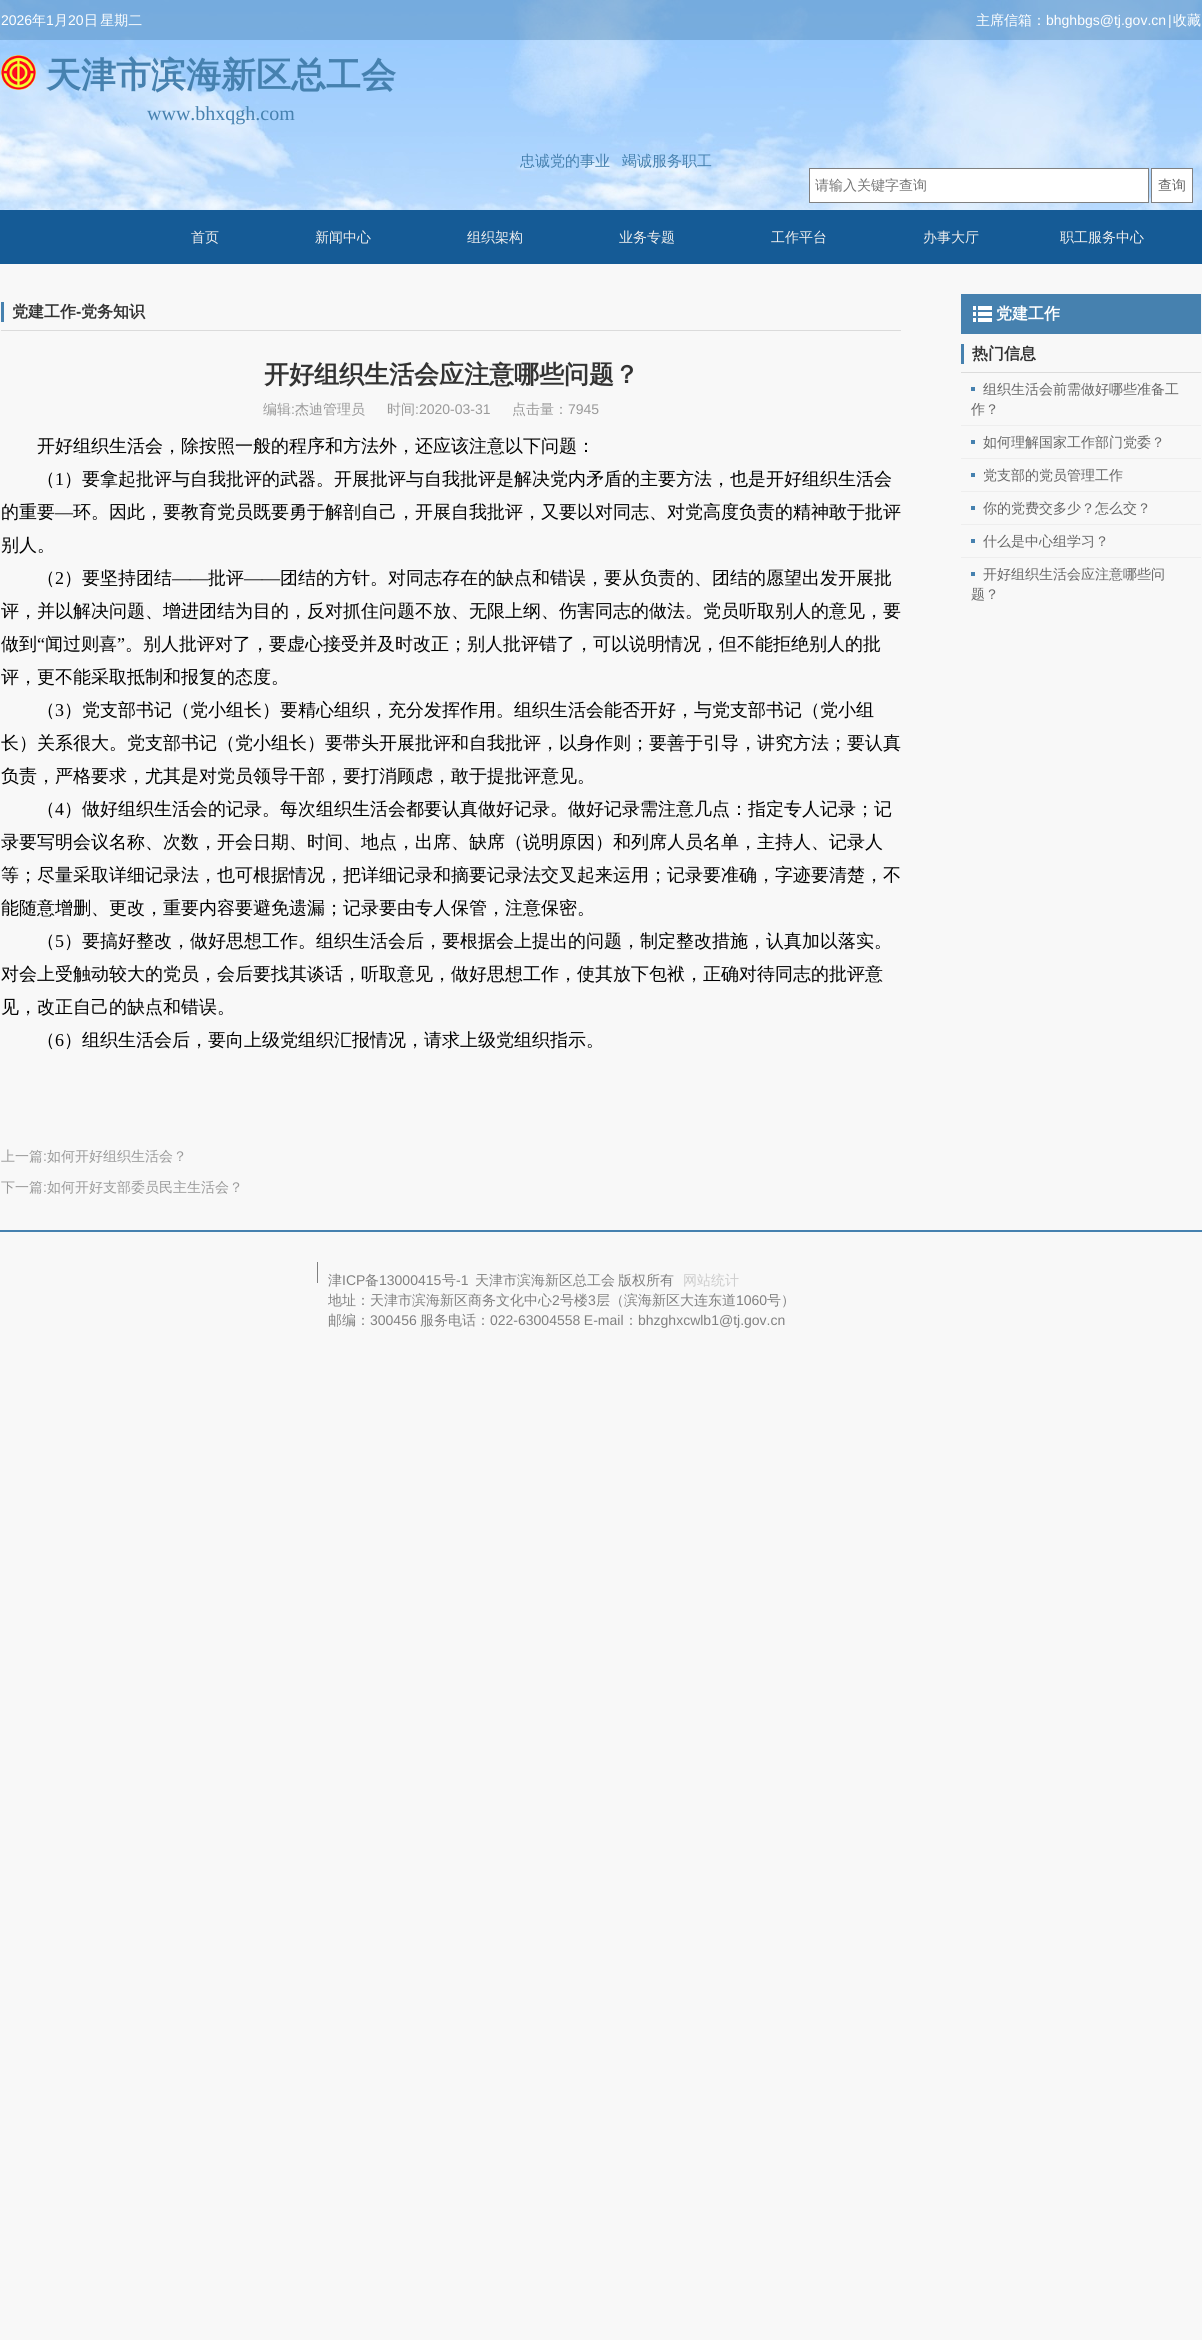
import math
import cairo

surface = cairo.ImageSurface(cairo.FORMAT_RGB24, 1202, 2340)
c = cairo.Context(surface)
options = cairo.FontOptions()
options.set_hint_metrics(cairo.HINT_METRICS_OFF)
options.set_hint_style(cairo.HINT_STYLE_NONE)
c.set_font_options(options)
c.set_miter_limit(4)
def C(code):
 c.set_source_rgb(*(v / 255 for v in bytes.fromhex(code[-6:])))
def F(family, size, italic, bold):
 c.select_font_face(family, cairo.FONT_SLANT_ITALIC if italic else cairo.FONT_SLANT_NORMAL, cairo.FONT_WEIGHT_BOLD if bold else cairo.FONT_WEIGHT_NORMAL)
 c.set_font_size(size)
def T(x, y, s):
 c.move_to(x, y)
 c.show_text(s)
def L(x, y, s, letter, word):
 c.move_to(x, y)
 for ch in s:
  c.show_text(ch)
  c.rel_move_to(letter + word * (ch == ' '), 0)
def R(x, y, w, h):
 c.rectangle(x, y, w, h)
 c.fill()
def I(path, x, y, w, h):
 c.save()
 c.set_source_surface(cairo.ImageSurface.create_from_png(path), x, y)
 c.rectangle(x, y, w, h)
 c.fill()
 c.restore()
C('f8f8f8')
c.paint()
I('1.png',0,0,1202,210)
c.set_source_rgba(0.275,0.506,0.686,0.4)
R(0,0,1202,40)
F('Liberation Sans',14,0,0)
C('ffffff')
T(1,25,'2026')
F('WenQuanYi Zen Hei Medium',14,0,0)
T(32,25,'年')
F('Liberation Sans',14,0,0)
T(46,25,'1')
F('WenQuanYi Zen Hei Medium',14,0,0)
T(54,25,'月')
F('Liberation Sans',14,0,0)
T(68,25,'20')
F('WenQuanYi Zen Hei Medium',14,0,0)
L(84,25,'日 星期二',0,-2)
T(976,25,'主席信箱：')
F('Liberation Sans',14,0,0)
L(1046,25,'bhghbgs@tj.gov.cn |',0,-2)
F('WenQuanYi Zen Hei Medium',14,0,0)
T(1173,25,'收藏')
I('2.png',1,55,35,35)
F('WenQuanYi Zen Hei',35,0,1)
C('4681af')
T(46,87,'天津市滨海新区总工会')
F('Liberation Serif',20,0,0)
T(147,120,'www.bhxqgh.com')
F('WenQuanYi Zen Hei Medium',15,0,0)
T(520,166,'忠诚党的事业')
T(622,166,'竭诚服务职工')
C('ffffff')
c.rectangle(809.5,168.5,339,34)
c.fill_preserve()
C('808080')
c.set_line_width(1)
c.stroke()
F('WenQuanYi Zen Hei Medium',14,0,0)
C('757575')
T(815,190,'请输入关键字查询')
C('ffffff')
c.rectangle(1151.5,168.5,41,34)
c.fill_preserve()
C('808080')
c.stroke()
C('666666')
T(1158,190,'查询')
C('155b96')
R(0,210,1202,54)
C('eeeeee')
T(191,242,'首页')
T(315,242,'新闻中心')
T(467,242,'组织架构')
T(619,242,'业务专题')
T(771,242,'工作平台')
T(923,242,'办事大厅')
T(1060,242,'职工服务中心')
C('dbdbdb')
R(1,330,900,1)
C('4681af')
R(1,302,3,20)
F('WenQuanYi Zen Hei',16,0,1)
C('333333')
T(12,317,'党建工作')
F('Liberation Sans',16,0,1)
T(76,317,'-')
F('WenQuanYi Zen Hei',16,0,1)
T(81,317,'党务知识')
F('WenQuanYi Zen Hei',25,0,1)
T(264,383,'开好组织生活会应注意哪些问题？')
F('WenQuanYi Zen Hei Medium',14,0,0)
C('999999')
T(263,414,'编辑')
F('Liberation Sans',14,0,0)
T(291,414,':')
F('WenQuanYi Zen Hei Medium',14,0,0)
T(295,414,'杰迪管理员')
T(387,414,'时间')
F('Liberation Sans',14,0,0)
T(415,414,':2020-03-31')
F('WenQuanYi Zen Hei Medium',14,0,0)
T(512,414,'点击量：')
F('Liberation Sans',14,0,0)
T(568,414,'7945')
F('WenQuanYi Zen Hei Medium',18,0,0)
C('000000')
T(37,452,'开好组织生活会，除按照一般的程序和方法外，还应该注意以下问题：')
T(37,485,'（')
F('Liberation Serif',18,0,0)
T(55,485,'1')
F('WenQuanYi Zen Hei Medium',18,0,0)
T(64,485,'）要拿起批评与自我批评的武器。开展批评与自我批评是解决党内矛盾的主要方法，也是开好组织生活会')
T(1,518,'的重要')
F('Liberation Serif',18,0,0)
T(55,518,'—')
F('WenQuanYi Zen Hei Medium',18,0,0)
T(73,518,'环。因此，要教育党员既要勇于解剖自己，开展自我批评，又要以对同志、对党高度负责的精神敢于批评')
T(1,551,'别人。')
T(37,584,'（')
F('Liberation Serif',18,0,0)
T(55,584,'2')
F('WenQuanYi Zen Hei Medium',18,0,0)
T(64,584,'）要坚持团结')
F('Liberation Serif',18,0,0)
T(172,584,'——')
F('WenQuanYi Zen Hei Medium',18,0,0)
T(208,584,'批评')
F('Liberation Serif',18,0,0)
T(244,584,'——')
F('WenQuanYi Zen Hei Medium',18,0,0)
T(280,584,'团结的方针。对同志存在的缺点和错误，要从负责的、团结的愿望出发开展批')
T(1,617,'评，并以解决问题、增进团结为目的，反对抓住问题不放、无限上纲、伤害同志的做法。党员听取别人的意见，要')
T(1,650,'做到')
F('Liberation Serif',18,0,0)
T(37,650,'“')
F('WenQuanYi Zen Hei Medium',18,0,0)
T(45,650,'闻过则喜')
F('Liberation Serif',18,0,0)
T(117,650,'”')
F('WenQuanYi Zen Hei Medium',18,0,0)
T(125,650,'。别人批评对了，要虚心接受并及时改正；别人批评错了，可以说明情况，但不能拒绝别人的批')
T(1,683,'评，更不能采取抵制和报复的态度。')
T(37,716,'（')
F('Liberation Serif',18,0,0)
T(55,716,'3')
F('WenQuanYi Zen Hei Medium',18,0,0)
T(64,716,'）党支部书记（党小组长）要精心组织，充分发挥作用。组织生活会能否开好，与党支部书记（党小组')
T(1,749,'长）关系很大。党支部书记（党小组长）要带头开展批评和自我批评，以身作则；要善于引导，讲究方法；要认真')
T(1,782,'负责，严格要求，尤其是对党员领导干部，要打消顾虑，敢于提批评意见。')
T(37,815,'（')
F('Liberation Serif',18,0,0)
T(55,815,'4')
F('WenQuanYi Zen Hei Medium',18,0,0)
T(64,815,'）做好组织生活会的记录。每次组织生活会都要认真做好记录。做好记录需注意几点：指定专人记录；记')
T(1,848,'录要写明会议名称、次数，开会日期、时间、地点，出席、缺席（说明原因）和列席人员名单，主持人、记录人')
T(1,881,'等；尽量采取详细记录法，也可根据情况，把详细记录和摘要记录法交叉起来运用；记录要准确，字迹要清楚，不')
T(1,914,'能随意增删、更改，重要内容要避免遗漏；记录要由专人保管，注意保密。')
T(37,947,'（')
F('Liberation Serif',18,0,0)
T(55,947,'5')
F('WenQuanYi Zen Hei Medium',18,0,0)
T(64,947,'）要搞好整改，做好思想工作。组织生活会后，要根据会上提出的问题，制定整改措施，认真加以落实。')
T(1,980,'对会上受触动较大的党员，会后要找其谈话，听取意见，做好思想工作，使其放下包袱，正确对待同志的批评意')
T(1,1013,'见，改正自己的缺点和错误。')
T(37,1046,'（')
F('Liberation Serif',18,0,0)
T(55,1046,'6')
F('WenQuanYi Zen Hei Medium',18,0,0)
T(64,1046,'）组织生活会后，要向上级党组织汇报情况，请求上级党组织指示。')
F('WenQuanYi Zen Hei Medium',14,0,0)
C('999999')
T(1,1161,'上一篇')
F('Liberation Sans',14,0,0)
T(43,1161,':')
F('WenQuanYi Zen Hei Medium',14,0,0)
T(47,1161,'如何开好组织生活会？')
T(1,1192,'下一篇')
F('Liberation Sans',14,0,0)
T(43,1192,':')
F('WenQuanYi Zen Hei Medium',14,0,0)
T(47,1192,'如何开好支部委员民主生活会？')
C('4681af')
R(961,294,240,40)
I('3.png',973,306,19,16)
F('WenQuanYi Zen Hei',16,0,1)
C('ffffff')
T(996,319,'党建工作')
C('dbdbdb')
R(961,372,240,1)
C('4681af')
R(961,344,3,20)
C('333333')
T(972,359,'热门信息')
C('eeeeee')
R(961,425,240,1)
C('4681af')
R(971,387,4,4)
F('WenQuanYi Zen Hei Medium',14,0,0)
C('666666')
T(983,394,'组织生活会前需做好哪些准备工')
T(971,414,'作？')
C('eeeeee')
R(961,458,240,1)
C('4681af')
R(971,440,4,4)
C('666666')
T(983,447,'如何理解国家工作部门党委？')
C('eeeeee')
R(961,491,240,1)
C('4681af')
R(971,473,4,4)
C('666666')
T(983,480,'党支部的党员管理工作')
C('eeeeee')
R(961,524,240,1)
C('4681af')
R(971,506,4,4)
C('666666')
T(983,513,'你的党费交多少？怎么交？')
C('eeeeee')
R(961,557,240,1)
C('4681af')
R(971,539,4,4)
C('666666')
T(983,546,'什么是中心组学习？')
C('4681af')
R(971,572,4,4)
C('666666')
T(983,579,'开好组织生活会应注意哪些问')
T(971,599,'题？')
C('4681af')
R(0,1230,1202,2)
C('808080')
R(317,1262,1,21)
T(328,1285,'津')
F('Liberation Sans',14,0,0)
T(342,1285,'ICP')
F('WenQuanYi Zen Hei Medium',14,0,0)
T(365,1285,'备')
F('Liberation Sans',14,0,0)
T(379,1285,'13000415')
F('WenQuanYi Zen Hei Medium',14,0,0)
T(442,1285,'号')
F('Liberation Sans',14,0,0)
T(456,1285,'-1')
F('WenQuanYi Zen Hei Medium',14,0,0)
T(475,1285,'天津市滨海新区总工会')
T(618,1285,'版权所有')
C('cccccc')
T(683,1285,'网站统计')
C('808080')
T(328,1305,'地址：天津市滨海新区商务文化中心')
F('Liberation Sans',14,0,0)
T(552,1305,'2')
F('WenQuanYi Zen Hei Medium',14,0,0)
T(560,1305,'号楼')
F('Liberation Sans',14,0,0)
T(588,1305,'3')
F('WenQuanYi Zen Hei Medium',14,0,0)
T(596,1305,'层（滨海新区大连东道')
F('Liberation Sans',14,0,0)
T(736,1305,'1060')
F('WenQuanYi Zen Hei Medium',14,0,0)
T(767,1305,'号）')
T(328,1325,'邮编：')
F('Liberation Sans',14,0,0)
T(370,1325,'300456')
F('WenQuanYi Zen Hei Medium',14,0,0)
T(420,1325,'服务电话：')
F('Liberation Sans',14,0,0)
L(490,1325,'022-63004558    E-mail',0,-3)
F('WenQuanYi Zen Hei Medium',14,0,0)
T(624,1325,'：')
F('Liberation Sans',14,0,0)
T(638,1325,'bhzghxcwlb1@tj.gov.cn')
surface.write_to_png('o.png')
